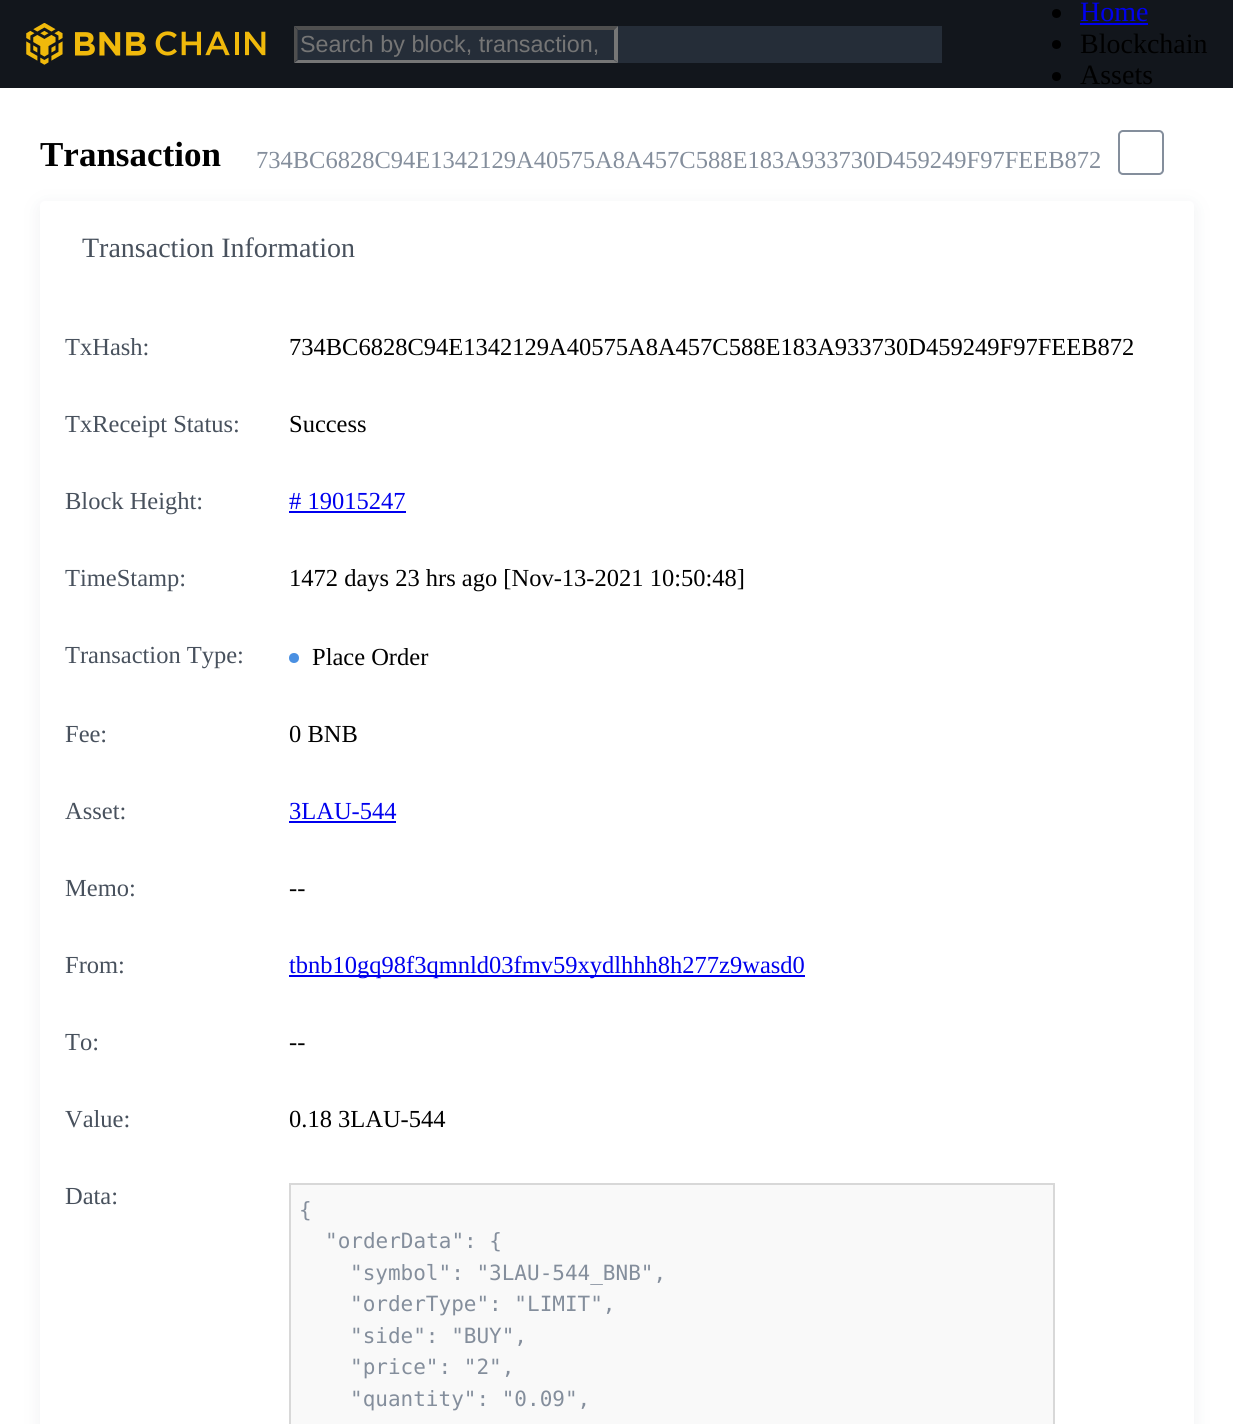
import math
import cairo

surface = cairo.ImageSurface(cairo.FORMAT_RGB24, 1233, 1424)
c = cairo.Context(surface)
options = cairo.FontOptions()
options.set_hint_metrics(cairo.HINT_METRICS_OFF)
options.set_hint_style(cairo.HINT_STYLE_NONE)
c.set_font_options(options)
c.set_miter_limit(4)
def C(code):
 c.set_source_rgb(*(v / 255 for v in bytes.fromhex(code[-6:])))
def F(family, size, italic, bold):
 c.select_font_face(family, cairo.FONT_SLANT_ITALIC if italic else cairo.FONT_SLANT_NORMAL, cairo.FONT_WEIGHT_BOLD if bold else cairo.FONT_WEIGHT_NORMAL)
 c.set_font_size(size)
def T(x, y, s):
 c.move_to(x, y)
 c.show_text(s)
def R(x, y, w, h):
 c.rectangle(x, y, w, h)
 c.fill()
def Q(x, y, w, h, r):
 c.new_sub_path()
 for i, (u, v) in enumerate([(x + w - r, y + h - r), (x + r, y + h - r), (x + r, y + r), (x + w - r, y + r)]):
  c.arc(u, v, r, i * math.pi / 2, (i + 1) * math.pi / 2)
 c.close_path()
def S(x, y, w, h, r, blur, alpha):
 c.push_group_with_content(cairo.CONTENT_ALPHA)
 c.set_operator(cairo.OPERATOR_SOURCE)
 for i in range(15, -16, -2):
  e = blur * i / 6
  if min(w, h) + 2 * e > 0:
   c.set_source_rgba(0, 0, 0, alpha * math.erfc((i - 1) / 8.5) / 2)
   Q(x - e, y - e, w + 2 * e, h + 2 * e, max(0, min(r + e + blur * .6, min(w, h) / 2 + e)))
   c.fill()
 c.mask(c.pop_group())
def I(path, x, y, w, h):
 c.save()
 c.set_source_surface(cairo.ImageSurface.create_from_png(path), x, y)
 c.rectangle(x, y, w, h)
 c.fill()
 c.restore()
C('ffffff')
c.paint()
C('12161c')
R(0,0,1233,88)
I('1.png',26,23,240,42)
C('252d38')
R(294,26,648,37)
C('4f4f4f')
c.new_path()
c.move_to(294,26)
c.line_to(618,26)
c.line_to(614,30)
c.line_to(298,30)
c.close_path()
c.fill()
C('767676')
c.new_path()
c.move_to(618,26)
c.line_to(618,63)
c.line_to(614,59.5)
c.line_to(614,30)
c.close_path()
c.fill()
c.new_path()
c.move_to(618,63)
c.line_to(294,63)
c.line_to(298,60)
c.line_to(614,60)
c.close_path()
c.fill()
C('4f4f4f')
c.new_path()
c.move_to(294,63)
c.line_to(294,26)
c.line_to(297.5,30)
c.line_to(297.5,59.5)
c.close_path()
c.fill()
F('Liberation Sans',23.3,0,0)
C('757575')
T(300,52,'Search by block, transaction,')
C('000000')
c.new_path()
c.arc(1056.5,13.5,4.5,0,2 * math.pi)
c.fill()
F('Liberation Serif',28,0,0)
C('0000ee')
T(1080,21,'Home')
R(1080,23,68,2)
C('000000')
c.new_path()
c.arc(1056.5,44.5,4.5,0,2 * math.pi)
c.fill()
T(1080,53,'Blockchain')
c.new_path()
c.arc(1056.5,76.5,4.5,0,2 * math.pi)
c.fill()
T(1080,84,'Assets')
F('Liberation Serif',35,0,1)
T(40,166,'Transaction')
F('Liberation Serif',24.5,0,0)
C('848e9c')
T(256,168,'734BC6828C94E1342129A40575A8A457C588E183A933730D459249F97FEEB872')
Q(1119,131,44,43,4)
c.stroke()
C('5a667c')
S(40,205,1154,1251,5,9,.1)
C('ffffff')
Q(40,201,1154,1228,5)
c.fill()
F('Liberation Serif',28,0,0)
C('48515d')
T(82,257,'Transaction Information')
F('Liberation Serif',24.5,0,0)
T(65,355,'TxHash:')
C('000000')
T(289,355,'734BC6828C94E1342129A40575A8A457C588E183A933730D459249F97FEEB872')
C('48515d')
T(65,432,'TxReceipt Status:')
C('000000')
T(289,432,'Success')
C('48515d')
T(65,509,'Block Height:')
C('0000ee')
T(289,509,'# 19015247')
R(289,511,117,2)
C('48515d')
T(65,586,'TimeStamp:')
C('000000')
T(289,586,'1472 days 23 hrs ago [Nov-13-2021 10:50:48]')
C('48515d')
T(65,663,'Transaction Type:')
C('4a90e2')
c.new_path()
c.arc(294,658,5,0,2 * math.pi)
c.fill()
C('000000')
T(312,665,'Place Order')
C('48515d')
T(65,742,'Fee:')
C('000000')
T(289,742,'0 BNB')
C('48515d')
T(65,819,'Asset:')
C('0000ee')
T(289,819,'3LAU-544')
R(289,821,107,2)
C('48515d')
T(65,896,'Memo:')
C('000000')
T(289,896,'--')
C('48515d')
T(65,973,'From:')
C('0000ee')
R(289,975,516,2)
T(289,973,'tbnb10gq98f3qmnld03fmv59xydlhhh8h277z9wasd0')
C('48515d')
T(65,1050,'To:')
C('000000')
T(289,1050,'--')
C('48515d')
T(65,1127,'Value:')
C('000000')
T(289,1127,'0.18 3LAU-544')
C('48515d')
T(65,1204,'Data:')
C('f9f9f9')
c.rectangle(290,1184,764,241)
c.fill_preserve()
C('d8d8d8')
c.stroke()
F('DejaVu Sans Mono',21,0,0)
C('848e9c')
T(299,1217,'{')
T(325,1248,'"orderData": {')
T(350,1280,'"symbol": "3LAU-544_BNB",')
T(350,1311,'"orderType": "LIMIT",')
T(350,1343,'"side": "BUY",')
T(350,1374,'"price": "2",')
T(350,1406,'"quantity": "0.09",')
surface.write_to_png('o.png')
